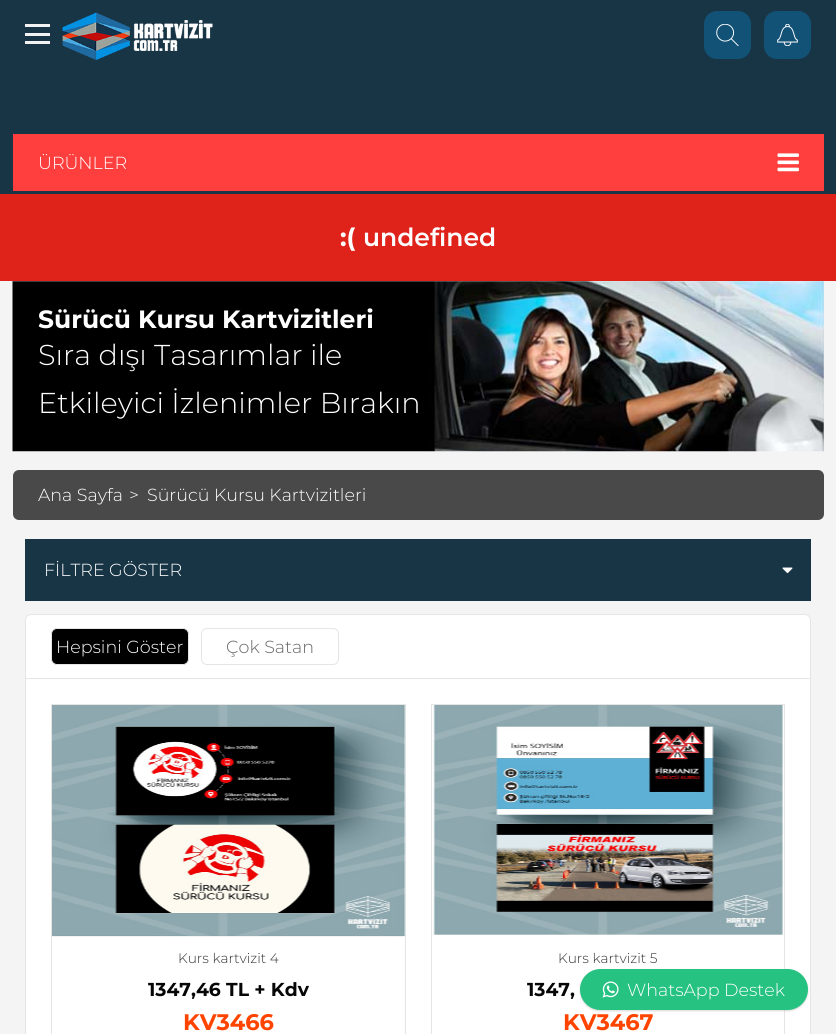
import math
import cairo

surface = cairo.ImageSurface(cairo.FORMAT_RGB24, 836, 1034)
c = cairo.Context(surface)
options = cairo.FontOptions()
options.set_hint_metrics(cairo.HINT_METRICS_OFF)
options.set_hint_style(cairo.HINT_STYLE_NONE)
c.set_font_options(options)
c.set_miter_limit(4)
def C(code):
 c.set_source_rgb(*(v / 255 for v in bytes.fromhex(code[-6:])))
def F(family, size, italic, bold):
 c.select_font_face(family, cairo.FONT_SLANT_ITALIC if italic else cairo.FONT_SLANT_NORMAL, cairo.FONT_WEIGHT_BOLD if bold else cairo.FONT_WEIGHT_NORMAL)
 c.set_font_size(size)
def T(x, y, s):
 c.move_to(x, y)
 c.show_text(s)
def R(x, y, w, h):
 c.rectangle(x, y, w, h)
 c.fill()
def Q(x, y, w, h, r):
 c.new_sub_path()
 for i, (u, v) in enumerate([(x + w - r, y + h - r), (x + r, y + h - r), (x + r, y + r), (x + w - r, y + r)]):
  c.arc(u, v, r, i * math.pi / 2, (i + 1) * math.pi / 2)
 c.close_path()
def S(x, y, w, h, r, blur, alpha):
 c.push_group_with_content(cairo.CONTENT_ALPHA)
 c.set_operator(cairo.OPERATOR_SOURCE)
 for i in range(15, -16, -2):
  e = blur * i / 6
  if min(w, h) + 2 * e > 0:
   c.set_source_rgba(0, 0, 0, alpha * math.erfc((i - 1) / 8.5) / 2)
   Q(x - e, y - e, w + 2 * e, h + 2 * e, max(0, min(r + e + blur * .6, min(w, h) / 2 + e)))
   c.fill()
 c.mask(c.pop_group())
def I(path, x, y, w, h):
 c.save()
 c.set_source_surface(cairo.ImageSurface.create_from_png(path), x, y)
 c.rectangle(x, y, w, h)
 c.fill()
 c.restore()
C('183546')
c.paint()
C('f2f2f2')
R(25,24,25,3)
R(25,33,25,3)
R(25,41,25,3)
I('1.png',62,12,151,48)
C('125277')
Q(704,11,47,48,13)
c.fill()
I('2.png',716,24,23,22)
Q(764,11,47,48,13)
c.fill()
I('3.png',777,24,21,22)
C('ff3e3e')
R(13,134,811,57)
F('Montserrat Light',17.5,0,0)
C('ffffff')
T(38,169,'ÜRÜNLER')
I('4.png',777,153,22,19)
C('df231b')
R(0,194,836,87)
F('Montserrat',25,0,1)
C('ffffff')
T(340,246,':(')
F('Montserrat SemiBold',25,0,0)
T(363,246,'undefined')
C('f4f4f4')
R(0,281,836,753)
I('5.png',12,281,812,171)
F('Montserrat',25,0,1)
C('ffffff')
T(38,328,'Sürücü Kursu Kartvizitleri')
F('Montserrat Light',28.75,0,0)
T(38,365,'Sıra dışı Tasarımlar ile')
T(38,413,'Etkileyici İzlenimler Bırakın')
C('494949')
Q(13,470,811,50,6)
c.fill()
F('Montserrat Light',17.5,0,0)
C('ffffff')
T(38,501,'Ana Sayfa')
T(129,501,'>')
T(147,501,'Sürücü Kursu Kartvizitleri')
C('183546')
R(25,539,786,62)
C('ffffff')
T(44,576,'FİLTRE GÖSTER')
I('6.png',782,567,11,7)
Q(25.5,614.5,785,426,5.5)
c.fill_preserve()
C('e5e5e5')
c.set_line_width(1)
c.stroke()
R(26,678,784,1)
C('000000')
Q(51.5,628.5,137,36,5.5)
c.fill_preserve()
C('e5e5e5')
c.stroke()
C('ffffff')
T(56,653,'Hepsini Göster')
Q(201.5,628.5,137,36,5.5)
C('e5e5e5')
c.stroke()
C('666666')
T(226,653,'Çok Satan')
c.rectangle(51.5,704.5,354,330)
C('e5e5e5')
c.stroke()
I('7.png',52,705,354,232)
F('Montserrat Light',13.75,0,0)
C('333333')
T(178,963,'Kurs kartvizit 4')
F('Montserrat',18.75,0,1)
C('060606')
T(148,996,'1347,46 TL + Kdv')
F('Montserrat',22.5,0,1)
C('ff4400')
T(183,1030,'KV3466')
c.rectangle(431.5,704.5,353,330)
C('e5e5e5')
c.stroke()
I('8.png',433,705,351,230)
F('Montserrat Light',13.75,0,0)
C('333333')
T(558,963,'Kurs kartvizit 5')
F('Montserrat',18.75,0,1)
C('060606')
T(527,996,'1347,')
F('Montserrat',22.5,0,1)
C('ff4400')
T(563,1030,'KV3467')
C('000000')
S(580,970,228,41,20.5,1,.15)
C('26c281')
Q(580,969,228,41,20.5)
c.fill()
I('9.png',602,981,17,17)
F('Montserrat Light',17.5,0,0)
C('ffffff')
T(627,996,'WhatsApp Destek')
surface.write_to_png('o.png')
